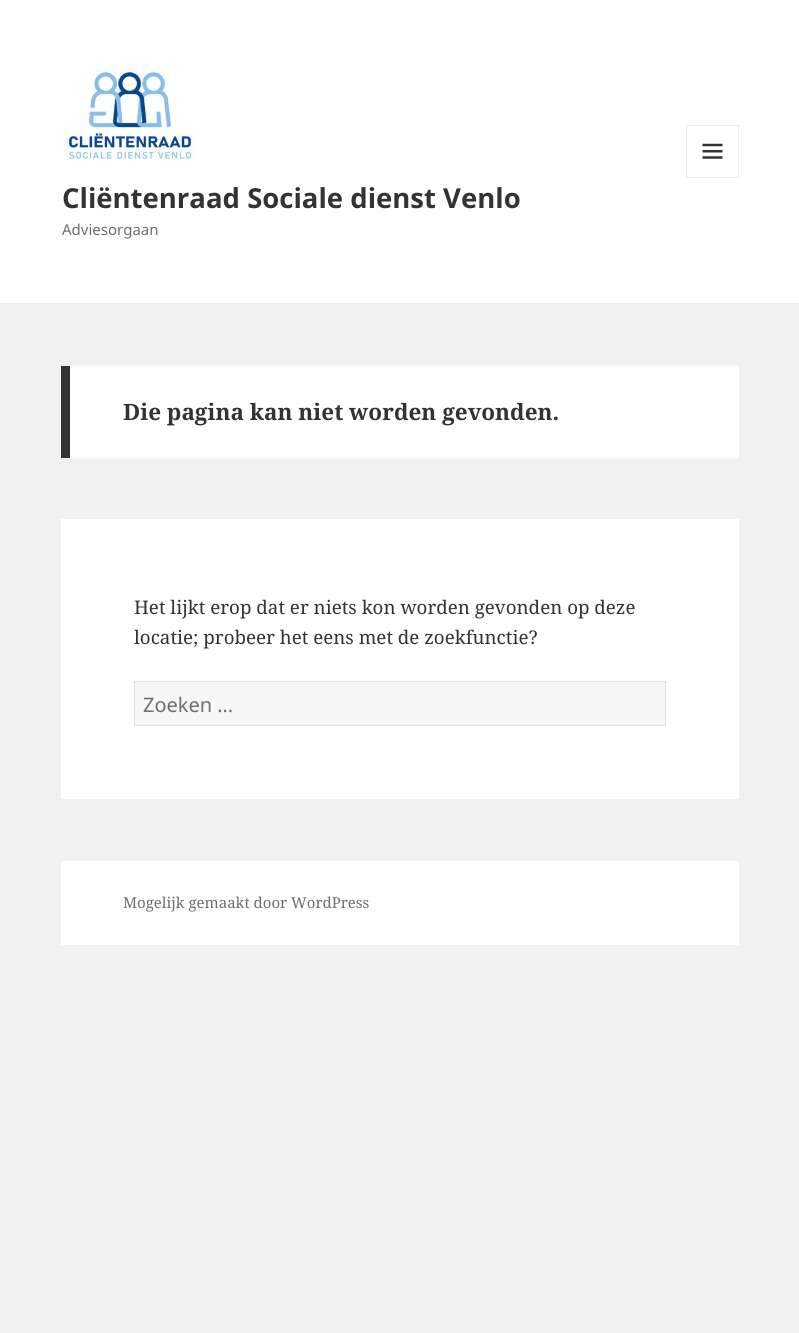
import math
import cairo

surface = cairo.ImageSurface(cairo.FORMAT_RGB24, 799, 1333)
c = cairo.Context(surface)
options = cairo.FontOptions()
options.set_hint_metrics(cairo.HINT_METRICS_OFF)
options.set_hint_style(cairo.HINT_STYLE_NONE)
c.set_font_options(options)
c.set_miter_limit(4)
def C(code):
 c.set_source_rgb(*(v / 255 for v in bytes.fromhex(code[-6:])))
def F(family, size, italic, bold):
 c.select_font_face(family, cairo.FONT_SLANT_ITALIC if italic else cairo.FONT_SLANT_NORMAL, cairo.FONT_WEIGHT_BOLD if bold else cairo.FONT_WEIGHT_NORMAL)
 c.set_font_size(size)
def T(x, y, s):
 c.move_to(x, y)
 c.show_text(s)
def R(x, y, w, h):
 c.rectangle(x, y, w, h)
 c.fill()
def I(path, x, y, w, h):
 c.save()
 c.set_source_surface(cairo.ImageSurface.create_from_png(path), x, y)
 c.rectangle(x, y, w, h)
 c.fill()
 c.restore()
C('f1f1f1')
c.paint()
C('ffffff')
R(0,0,799,303)
C('ebebeb')
R(0,303,799,1)
I('1.png',66,70,128,89)
c.rectangle(686.5,125.5,52,52)
c.set_line_width(1)
c.stroke()
I('2.png',702,143,21,16)
F('Noto Sans',27.5,0,1)
C('333333')
T(62,208,'Cliëntenraad Sociale dienst Venlo')
F('Noto Sans',15,0,0)
C('6e6e6e')
T(62,235,'Adviesorgaan')
C('ffffff')
R(70,366,669,92)
C('333333')
R(61,366,9,92)
F('Noto Serif',22.5,0,1)
T(123,420,'Die pagina kan niet worden gevonden.')
C('ffffff')
R(61,519,678,280)
F('Noto Serif',18.75,0,0)
C('333333')
T(134,614,'Het lijkt erop dat er niets kon worden gevonden op deze')
T(134,644,'locatie; probeer het eens met de zoekfunctie?')
C('f7f7f7')
c.rectangle(134.5,681.5,531,44)
c.fill_preserve()
C('e3e3e3')
c.stroke()
F('Noto Sans',20,0,0)
C('6e6e6e')
T(143,712,'Zoeken …')
C('ffffff')
R(61,861,678,84)
F('Noto Serif',15,0,0)
C('6e6e6e')
T(123,908,'Mogelijk gemaakt door WordPress')
surface.write_to_png('o.png')
